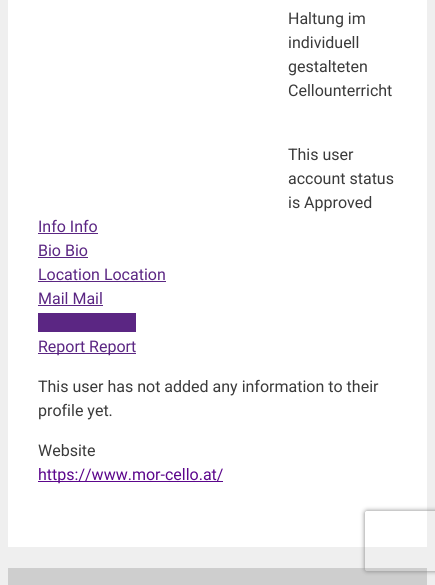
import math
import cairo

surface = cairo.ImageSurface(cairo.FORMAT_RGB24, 435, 585)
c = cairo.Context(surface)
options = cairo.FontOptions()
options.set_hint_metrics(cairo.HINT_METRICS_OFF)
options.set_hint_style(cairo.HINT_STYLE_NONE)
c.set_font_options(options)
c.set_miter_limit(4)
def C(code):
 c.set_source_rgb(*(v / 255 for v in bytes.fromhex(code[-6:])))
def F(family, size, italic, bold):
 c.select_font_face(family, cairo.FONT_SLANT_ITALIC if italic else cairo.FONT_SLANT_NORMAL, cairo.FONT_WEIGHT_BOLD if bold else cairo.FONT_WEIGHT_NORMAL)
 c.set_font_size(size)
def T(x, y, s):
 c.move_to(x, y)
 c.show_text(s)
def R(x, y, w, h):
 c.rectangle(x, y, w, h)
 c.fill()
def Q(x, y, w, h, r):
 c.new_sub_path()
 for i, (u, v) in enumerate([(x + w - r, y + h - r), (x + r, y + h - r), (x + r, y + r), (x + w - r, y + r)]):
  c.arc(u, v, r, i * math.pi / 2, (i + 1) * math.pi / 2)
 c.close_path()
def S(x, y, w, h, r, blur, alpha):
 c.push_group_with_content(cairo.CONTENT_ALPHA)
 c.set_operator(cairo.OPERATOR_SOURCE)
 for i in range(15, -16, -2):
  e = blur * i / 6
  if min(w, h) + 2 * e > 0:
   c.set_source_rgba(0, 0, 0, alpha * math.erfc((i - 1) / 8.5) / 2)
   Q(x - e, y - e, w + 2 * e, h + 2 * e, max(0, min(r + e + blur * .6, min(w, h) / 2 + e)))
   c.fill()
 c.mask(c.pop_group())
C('efefef')
c.paint()
C('ffffff')
R(8,0,419,547)
F('Roboto',16,0,0)
C('3a3a3a')
T(288,24,'Haltung im')
T(288,48,'individuell')
T(288,72,'gestalteten')
T(288,96,'Cellounterricht')
T(288,160,'This user')
T(288,184,'account status')
T(288,208,'is Approved')
C('5b2683')
T(38,232,'Info Info')
R(38,233,60,1)
T(38,256,'Bio Bio')
R(38,257,50,1)
T(38,280,'Location Location')
R(38,281,128,1)
T(38,304,'Mail Mail')
R(38,305,65,1)
R(38,313,98,19)
R(38,353,98,1)
T(38,352,'Report Report')
C('3a3a3a')
T(38,392,'This user has not added any information to their')
T(38,416,'profile yet.')
T(38,456,'Website')
C('5c068c')
R(38,481,185,1)
T(38,480,'https://www.mor-cello.at/')
C('cecece')
R(8,568,419,17)
c.save()
c.set_fill_rule(cairo.FILL_RULE_EVEN_ODD)
c.new_path()
c.move_to(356,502)
c.line_to(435,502)
c.line_to(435,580)
c.line_to(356,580)
c.close_path()
c.move_to(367,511)
c.line_to(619,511)
c.curve_to(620,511,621,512,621,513)
c.line_to(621,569)
c.curve_to(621,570,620,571,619,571)
c.line_to(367,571)
c.curve_to(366,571,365,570,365,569)
c.line_to(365,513)
c.curve_to(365,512,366,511,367,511)
c.close_path()
c.clip()
C('808080')
S(365,511,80,60,2,2.5,1)
c.restore()
surface.write_to_png('o.png')
